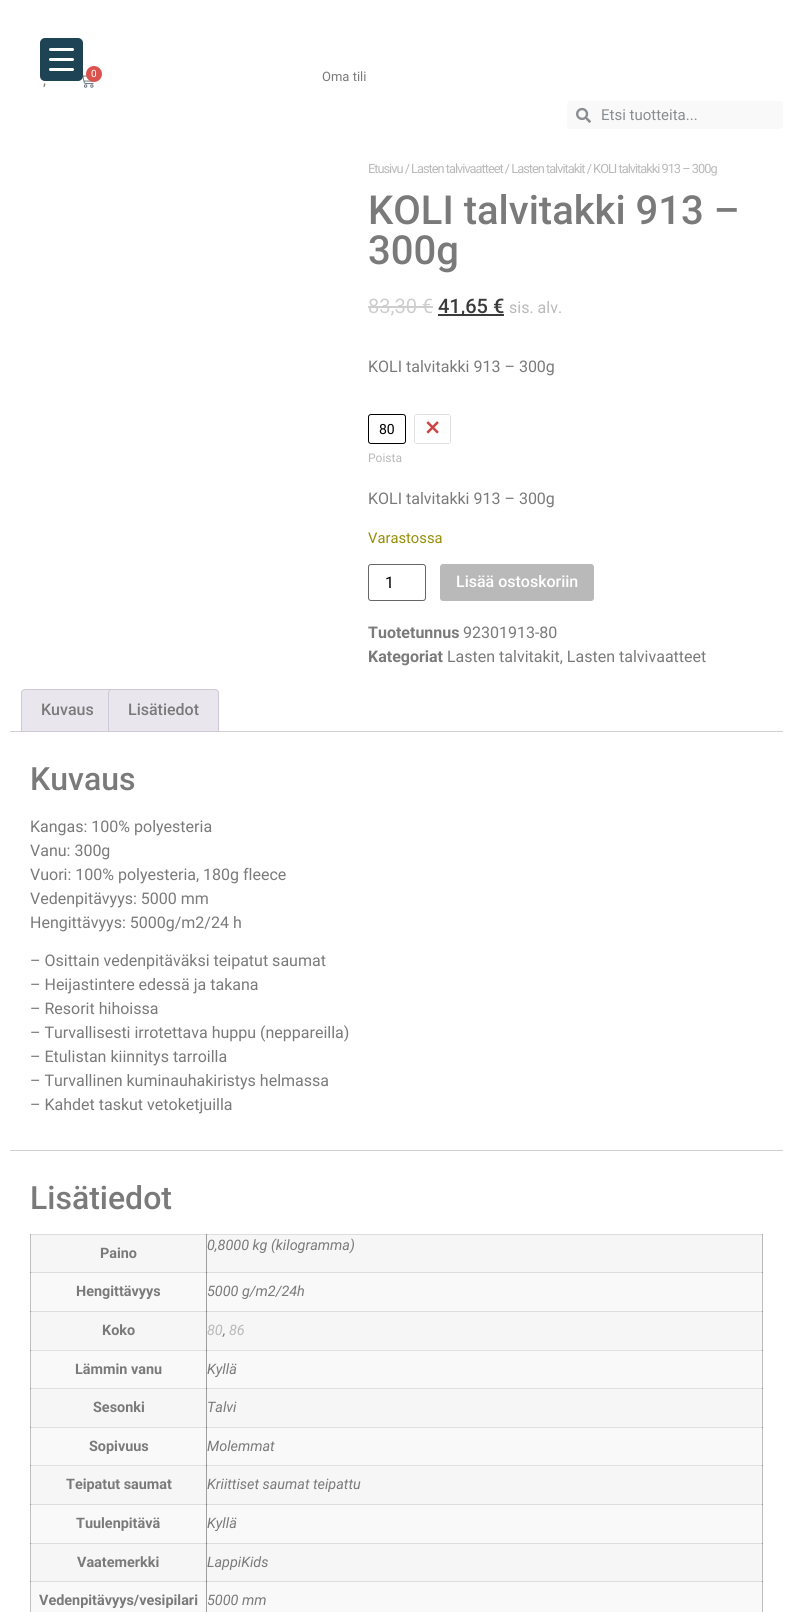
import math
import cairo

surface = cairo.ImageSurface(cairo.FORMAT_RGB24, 793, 1612)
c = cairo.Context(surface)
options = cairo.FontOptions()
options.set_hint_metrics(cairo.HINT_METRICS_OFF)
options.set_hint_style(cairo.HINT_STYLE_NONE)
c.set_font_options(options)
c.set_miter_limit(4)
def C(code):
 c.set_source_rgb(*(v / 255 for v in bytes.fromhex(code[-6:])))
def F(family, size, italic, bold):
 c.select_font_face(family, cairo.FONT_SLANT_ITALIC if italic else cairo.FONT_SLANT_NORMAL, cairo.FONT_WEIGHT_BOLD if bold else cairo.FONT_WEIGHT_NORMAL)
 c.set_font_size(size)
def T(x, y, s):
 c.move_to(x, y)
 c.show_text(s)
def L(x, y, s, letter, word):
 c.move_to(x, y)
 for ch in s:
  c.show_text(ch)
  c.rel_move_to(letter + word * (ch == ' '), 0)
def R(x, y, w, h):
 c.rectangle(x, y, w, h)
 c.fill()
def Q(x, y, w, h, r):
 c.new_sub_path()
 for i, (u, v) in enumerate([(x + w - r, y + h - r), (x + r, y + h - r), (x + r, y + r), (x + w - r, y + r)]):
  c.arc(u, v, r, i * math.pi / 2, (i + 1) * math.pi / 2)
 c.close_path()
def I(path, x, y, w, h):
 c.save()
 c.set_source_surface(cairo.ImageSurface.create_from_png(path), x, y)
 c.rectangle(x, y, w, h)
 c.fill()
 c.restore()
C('ffffff')
c.paint()
C('c0c0c0')
R(30,1234,1,378)
C('979797')
R(30,1272,1,1)
R(30,1311,1,1)
R(30,1350,1,1)
R(30,1388,1,1)
R(30,1427,1,1)
R(30,1465,1,1)
R(30,1504,1,1)
R(30,1543,1,1)
C('b3b3b3')
R(30,1234,1,1)
I('1.png',82,74,12,14)
C('1d4354')
Q(40,38,43,43,5)
c.fill()
C('ffffff')
Q(49,58,25,3,1.5)
c.fill()
Q(49,48,25,3,1.5)
c.fill()
Q(49,68,25,3,1.5)
c.fill()
C('d9534f')
c.arc(94,74,8,0,2 * math.pi)
c.fill()
F('Roboto',10,0,0)
C('ffffff')
T(91,77,'0')
F('Roboto',15,0,0)
C('7a7a7a')
T(43,85,',')
F('Roboto',13,0,0)
T(322,81,'Oma tili')
C('f9f9f9')
Q(567,101,216,28,3)
c.fill()
I('2.png',576,107,15,16)
F('Roboto',15,0,0)
C('898c91')
T(601,120,'Etsi tuotteita...')
F('Roboto',12.8,0,0)
C('b9b9b9')
L(368,173,'Etusivu / Lasten talvivaatteet / Lasten talvitakit / KOLI talvitakki 913 – 300g',-1,0)
F('Roboto Medium',40,0,0)
C('7a7a7a')
T(368,224,'KOLI talvitakki 913 –')
T(368,264,'300g')
F('Roboto',20,0,0)
C('cecece')
T(368,313,'83,30 €')
R(368,306,65,2)
C('3b3b3b')
R(438,314,66,2)
F('Roboto Medium',20,0,0)
T(438,313,'41,65 €')
F('Roboto',16,0,0)
C('b9b9b9')
T(509,313,'sis. alv.')
C('7a7a7a')
T(368,372,'KOLI talvitakki 913 – 300g')
Q(368.5,414.5,37,29,2.5)
C('000000')
c.set_line_width(1)
c.stroke()
F('Roboto',14,0,0)
T(379,434,'80')
Q(414.5,414.5,36,29,2.5)
C('dfdfdf')
c.stroke()
c.set_source_rgba(1,1,1,0.7)
R(415,415,35,28)
I('3.png',426,421,13,13)
F('Roboto',12,0,0)
C('b9b9b9')
T(368,462,'Poista')
F('Roboto',16,0,0)
C('7a7a7a')
T(368,504,'KOLI talvitakki 913 – 300g')
F('Roboto',14.75,0,0)
C('958e09')
T(368,543,'Varastossa')
Q(368.5,564.5,57,36,2.5)
C('666666')
c.stroke()
F('Roboto',16,0,0)
C('000000')
T(385,588,'1')
C('b9b9b9')
Q(440,564,154,37,3)
c.fill()
F('Roboto Medium',16,0,0)
C('ffffff')
T(456,587,'Lisää ostoskoriin')
F('Roboto',16,0,1)
C('7a7a7a')
T(368,638,'Tuotetunnus')
F('Roboto',16,0,0)
T(463,638,'92301913-80')
F('Roboto',16,0,1)
T(368,662,'Kategoriat')
F('Roboto',16,0,0)
T(447,662,'Lasten talvitakit, Lasten talvivaatteet')
C('d3ced2')
R(10,731,773,1)
C('e9e6ed')
c.new_path()
c.move_to(25,689.5)
c.line_to(110,689.5)
c.curve_to(112,689.5,113.5,691,113.5,693)
c.line_to(113.5,731.5)
c.line_to(21.5,731.5)
c.line_to(21.5,693)
c.curve_to(21.5,691,23,689.5,25,689.5)
c.close_path()
c.fill_preserve()
C('cfc8d8')
c.stroke()
F('Roboto Medium',16,0,0)
C('7a7a7a')
T(41,715,'Kuvaus')
C('e9e6ed')
c.new_path()
c.move_to(112,689.5)
c.line_to(215,689.5)
c.curve_to(217,689.5,218.5,691,218.5,693)
c.line_to(218.5,731.5)
c.line_to(108.5,731.5)
c.line_to(108.5,693)
c.curve_to(108.5,691,110,689.5,112,689.5)
c.close_path()
c.fill_preserve()
C('cfc8d8')
c.stroke()
C('7a7a7a')
T(128,715,'Lisätiedot')
F('Roboto Medium',32,0,0)
T(30,790,'Kuvaus')
F('Roboto',16,0,0)
T(30,832,'Kangas: 100% polyesteria')
T(30,856,'Vanu: 300g')
T(30,880,'Vuori: 100% polyesteria, 180g fleece')
T(30,904,'Vedenpitävyys: 5000 mm')
T(30,928,'Hengittävyys: 5000g/m2/24 h')
T(30,966,'– Osittain vedenpitäväksi teipatut saumat')
T(30,990,'– Heijastintere edessä ja takana')
T(30,1014,'– Resorit hihoissa')
T(30,1038,'– Turvallisesti irrotettava huppu (neppareilla)')
T(30,1062,'– Etulistan kiinnitys tarroilla')
T(30,1086,'– Turvallinen kuminauhakiristys helmassa')
T(30,1110,'– Kahdet taskut vetoketjuilla')
C('d3ced2')
R(10,1150,773,1)
F('Roboto Medium',32,0,0)
C('7a7a7a')
T(30,1209,'Lisätiedot')
C('f6f6f6')
R(31,1235,175,37)
C('dddddd')
R(31,1272,175,1)
R(31,1234,175,1)
F('Roboto',14.4,0,1)
C('7a7a7a')
T(100,1258,'Paino')
C('f6f6f6')
R(207,1235,555,37)
C('9e9e9e')
R(206,1234,1,39)
C('dddddd')
R(206,1272,557,1)
C('bbbbbb')
R(762,1234,1,39)
C('777777')
R(206,1272,1,1)
C('8e8e8e')
R(762,1272,1,1)
C('dddddd')
R(206,1234,557,1)
C('989898')
R(206,1234,1,1)
C('afafaf')
R(762,1234,1,1)
F('Roboto',14.4,1,0)
C('7a7a7a')
T(207,1250,'0,8000 kg (kilogramma)')
C('f9f9f9')
R(31,1273,175,38)
F('Roboto',14.4,0,1)
C('7a7a7a')
T(76,1296,'Hengittävyys')
C('f9f9f9')
R(207,1273,555,38)
C('9f9f9f')
R(206,1273,1,38)
C('bdbdbd')
R(762,1273,1,38)
F('Roboto',14.4,1,0)
C('7a7a7a')
T(207,1296,'5000 g/m2/24h')
C('f6f6f6')
R(31,1312,175,38)
C('dddddd')
R(31,1311,732,1)
F('Roboto',14.4,0,1)
C('7a7a7a')
T(102,1335,'Koko')
C('f6f6f6')
R(207,1312,555,38)
C('9e9e9e')
R(206,1311,1,39)
C('777777')
R(206,1311,1,1)
C('bbbbbb')
R(762,1311,1,39)
C('8e8e8e')
R(762,1311,1,1)
F('Roboto',14.4,1,0)
C('b9b9b9')
T(207,1335,'80')
T(229,1335,'86')
C('7a7a7a')
T(223,1335,',')
C('f9f9f9')
R(31,1351,175,37)
C('e0e0e0')
R(31,1350,732,1)
R(31,1388,175,1)
F('Roboto',14.4,0,1)
C('7a7a7a')
T(75,1374,'Lämmin vanu')
C('f9f9f9')
R(207,1351,555,37)
C('9f9f9f')
R(206,1350,1,39)
C('777777')
R(206,1350,1,1)
C('e0e0e0')
R(206,1388,557,1)
C('bdbdbd')
R(762,1350,1,39)
C('8f8f8f')
R(762,1350,1,1)
C('777777')
R(206,1388,1,1)
C('8f8f8f')
R(762,1388,1,1)
F('Roboto',14.4,1,0)
C('7a7a7a')
T(207,1374,'Kyllä')
C('f6f6f6')
R(31,1389,175,38)
F('Roboto',14.4,0,1)
C('7a7a7a')
T(93,1412,'Sesonki')
C('f6f6f6')
R(207,1389,555,38)
C('9e9e9e')
R(206,1389,1,38)
C('bbbbbb')
R(762,1389,1,38)
F('Roboto',14.4,1,0)
C('7a7a7a')
T(207,1412,'Talvi')
C('f9f9f9')
R(31,1428,175,37)
C('e0e0e0')
R(31,1427,732,1)
R(31,1465,175,1)
F('Roboto',14.4,0,1)
C('7a7a7a')
T(89,1451,'Sopivuus')
C('f9f9f9')
R(207,1428,555,37)
C('9f9f9f')
R(206,1427,1,39)
C('777777')
R(206,1427,1,1)
C('e0e0e0')
R(206,1465,557,1)
C('bdbdbd')
R(762,1427,1,39)
C('8f8f8f')
R(762,1427,1,1)
C('777777')
R(206,1465,1,1)
C('8f8f8f')
R(762,1465,1,1)
F('Roboto',14.4,1,0)
C('7a7a7a')
T(207,1451,'Molemmat')
C('f6f6f6')
R(31,1466,175,38)
C('dddddd')
R(31,1504,175,1)
F('Roboto',14.4,0,1)
C('7a7a7a')
T(66,1489,'Teipatut saumat')
C('f6f6f6')
R(207,1466,555,38)
C('9e9e9e')
R(206,1466,1,39)
C('dddddd')
R(206,1504,557,1)
C('bbbbbb')
R(762,1466,1,39)
C('777777')
R(206,1504,1,1)
C('8e8e8e')
R(762,1504,1,1)
F('Roboto',14.4,1,0)
C('7a7a7a')
T(207,1489,'Kriittiset saumat teipattu')
C('f9f9f9')
R(31,1505,175,38)
F('Roboto',14.4,0,1)
C('7a7a7a')
T(76,1528,'Tuulenpitävä')
C('f9f9f9')
R(207,1505,555,38)
C('9f9f9f')
R(206,1505,1,38)
C('bdbdbd')
R(762,1505,1,38)
F('Roboto',14.4,1,0)
C('7a7a7a')
T(207,1528,'Kyllä')
C('f6f6f6')
R(31,1544,175,37)
C('dddddd')
R(31,1543,732,1)
R(31,1581,175,1)
F('Roboto',14.4,0,1)
C('7a7a7a')
T(77,1567,'Vaatemerkki')
C('f6f6f6')
R(207,1544,555,37)
C('9e9e9e')
R(206,1543,1,39)
C('777777')
R(206,1543,1,1)
C('dddddd')
R(206,1581,557,1)
C('bbbbbb')
R(762,1543,1,39)
C('8e8e8e')
R(762,1543,1,1)
R(762,1581,1,1)
F('Roboto',14.4,1,0)
C('7a7a7a')
T(207,1567,'LappiKids')
C('f9f9f9')
R(31,1582,175,30)
C('9e9e9e')
R(206,1581,1,31)
C('777777')
R(206,1581,1,1)
C('979797')
R(30,1581,1,1)
F('Roboto',14.4,0,1)
C('7a7a7a')
T(39,1605,'Vedenpitävyys/vesipilari')
C('f9f9f9')
R(207,1582,555,30)
C('bdbdbd')
R(762,1582,1,30)
F('Roboto',14.4,1,0)
C('7a7a7a')
T(207,1605,'5000 mm')
surface.write_to_png('o.png')
